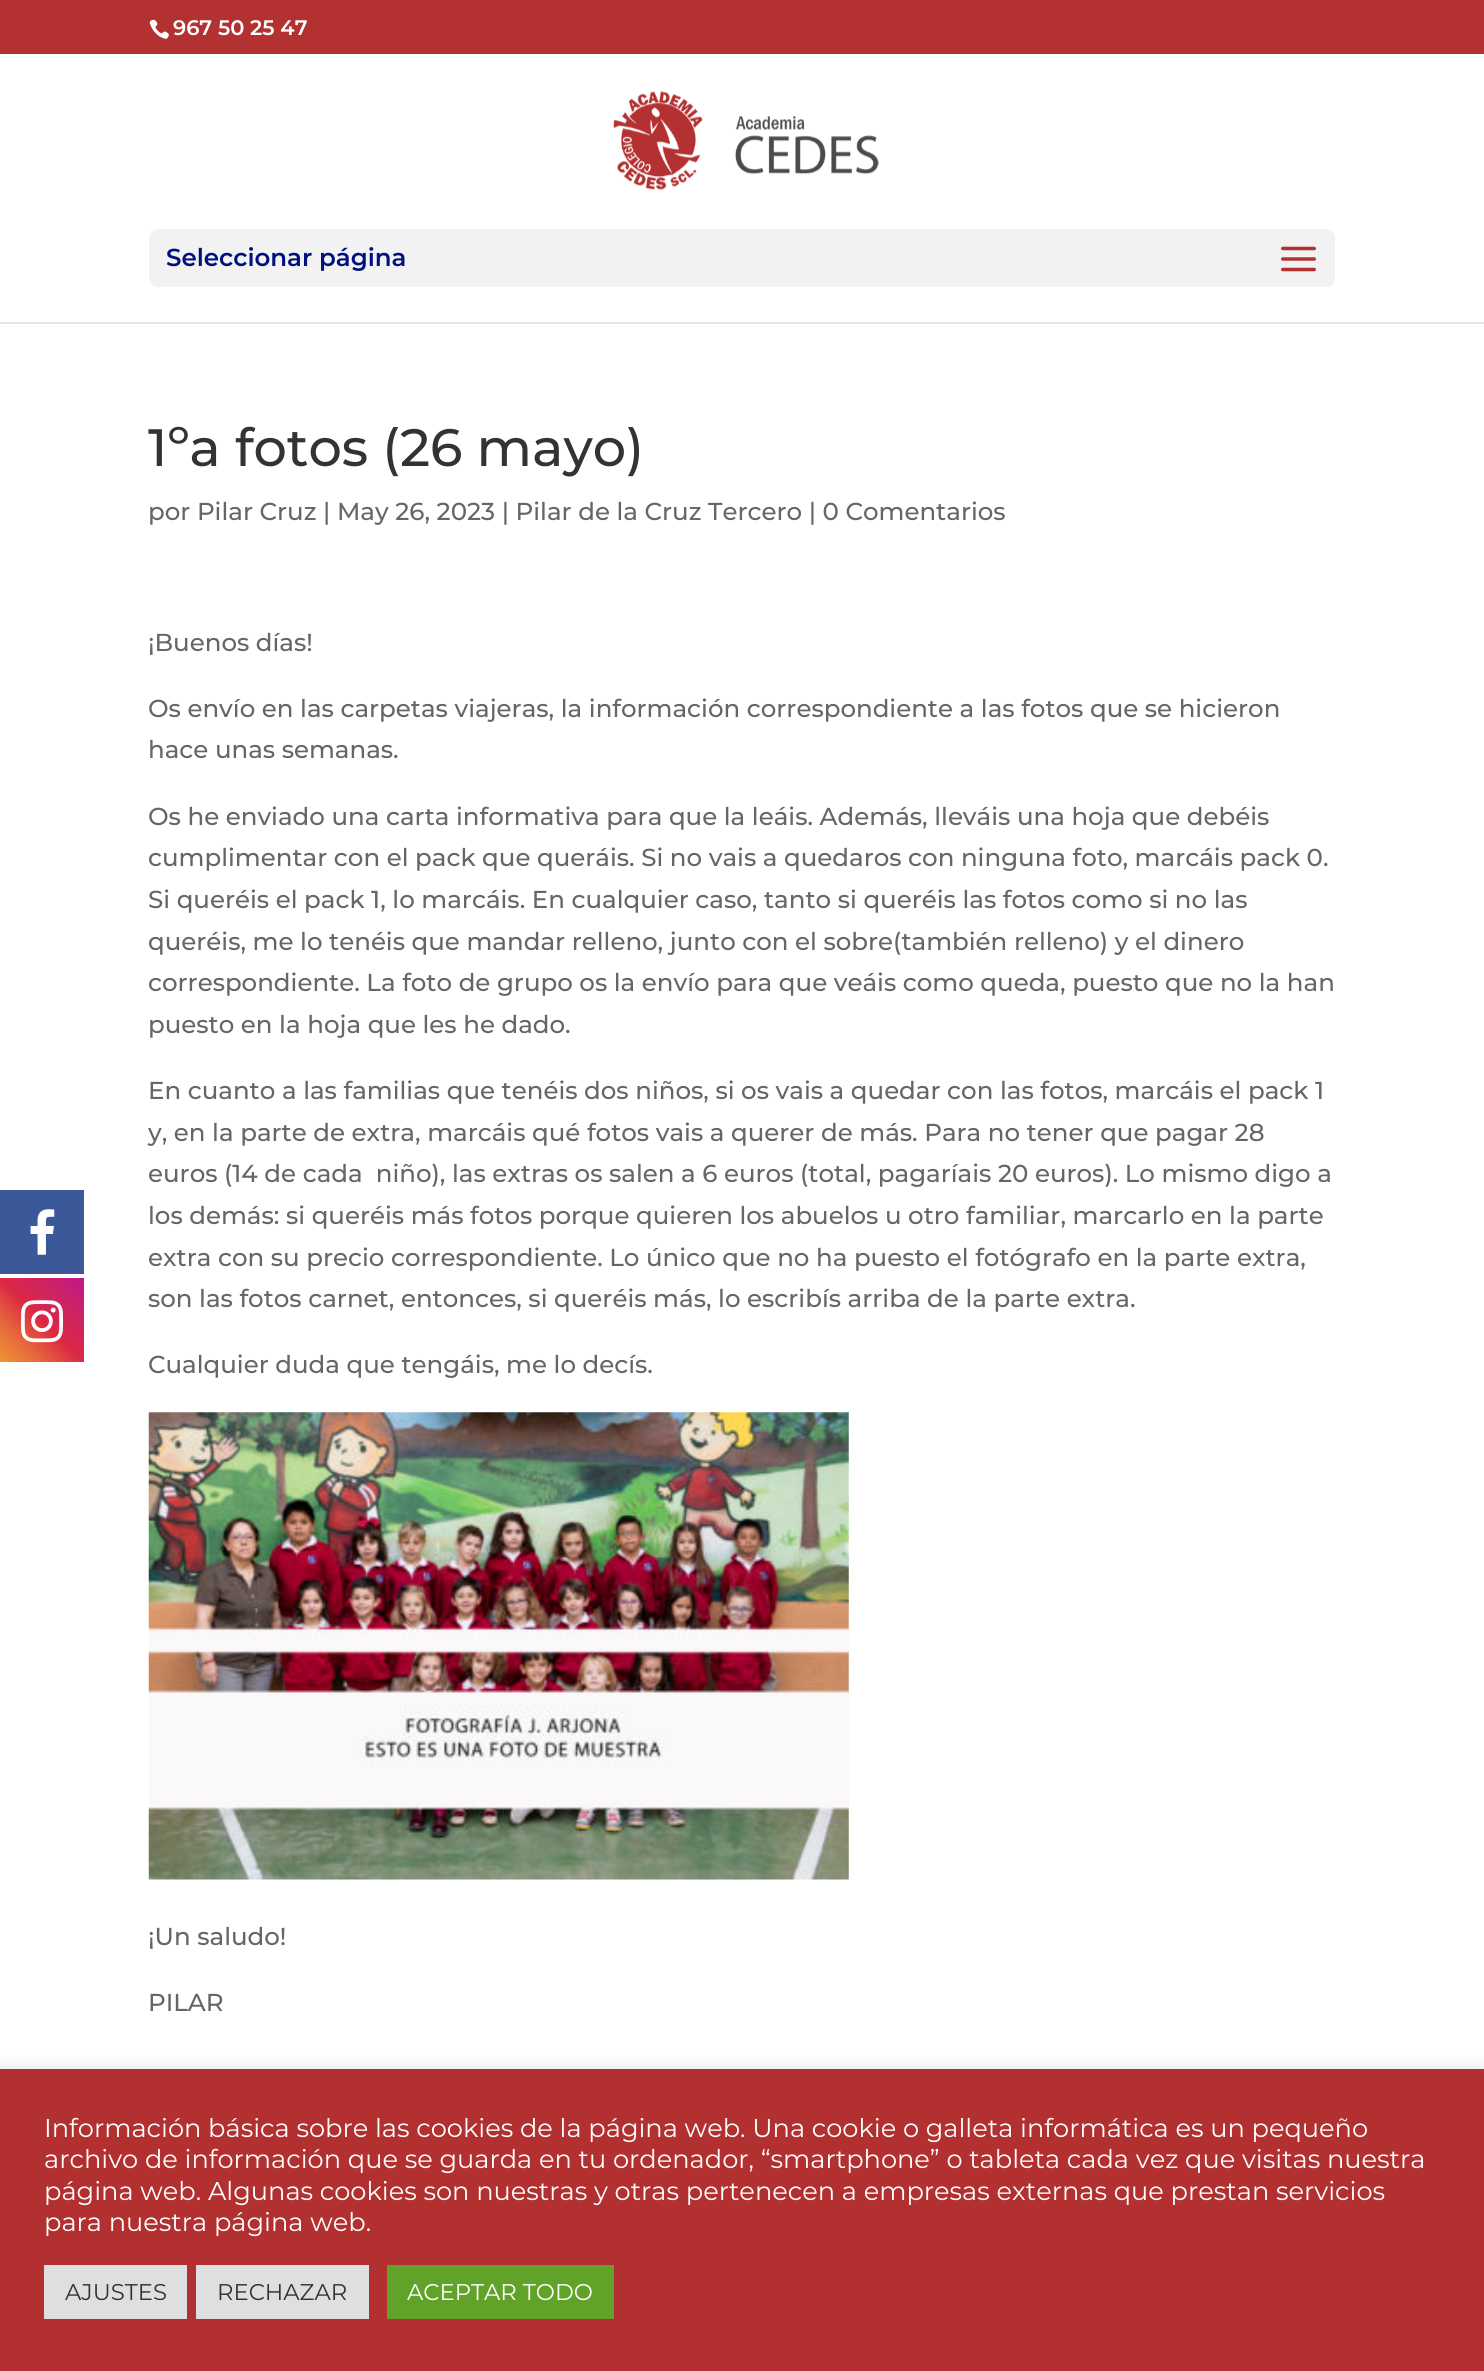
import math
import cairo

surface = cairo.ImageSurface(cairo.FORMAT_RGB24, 1484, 2371)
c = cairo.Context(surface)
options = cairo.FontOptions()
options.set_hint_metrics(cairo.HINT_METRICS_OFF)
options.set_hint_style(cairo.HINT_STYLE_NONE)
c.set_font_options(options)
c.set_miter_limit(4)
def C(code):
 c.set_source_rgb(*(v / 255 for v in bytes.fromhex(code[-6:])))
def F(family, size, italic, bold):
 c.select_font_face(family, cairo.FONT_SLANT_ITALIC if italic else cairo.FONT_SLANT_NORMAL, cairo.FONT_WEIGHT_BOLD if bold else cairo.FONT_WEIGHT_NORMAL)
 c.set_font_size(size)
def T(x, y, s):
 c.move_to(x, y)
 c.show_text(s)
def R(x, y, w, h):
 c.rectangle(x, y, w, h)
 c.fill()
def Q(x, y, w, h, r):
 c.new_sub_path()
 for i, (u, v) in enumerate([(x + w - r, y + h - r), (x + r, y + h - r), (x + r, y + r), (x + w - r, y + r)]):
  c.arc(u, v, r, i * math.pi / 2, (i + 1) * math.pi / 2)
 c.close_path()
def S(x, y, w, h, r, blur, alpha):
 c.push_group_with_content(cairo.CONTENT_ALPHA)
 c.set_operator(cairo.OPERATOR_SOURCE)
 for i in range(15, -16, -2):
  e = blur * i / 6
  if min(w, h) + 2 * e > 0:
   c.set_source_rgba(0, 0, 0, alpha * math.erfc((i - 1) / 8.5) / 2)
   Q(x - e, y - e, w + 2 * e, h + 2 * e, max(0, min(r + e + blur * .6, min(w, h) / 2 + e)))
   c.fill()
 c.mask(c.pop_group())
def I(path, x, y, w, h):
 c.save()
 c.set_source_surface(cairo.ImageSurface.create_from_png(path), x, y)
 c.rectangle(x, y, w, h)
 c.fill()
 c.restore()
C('ffffff')
c.paint()
C('3b5998')
R(0,1190,84,84)
I('1.png',30,1209,25,46)
gradient = cairo.LinearGradient(0,1362,84,1278)
gradient.add_color_stop_rgba(0,0.941,0.58,0.2,1)
gradient.add_color_stop_rgba(.25,0.902,0.408,0.235,1)
gradient.add_color_stop_rgba(.5,0.863,0.153,0.263,1)
gradient.add_color_stop_rgba(.75,0.8,0.137,0.4,1)
gradient.add_color_stop_rgba(1,0.737,0.094,0.533,1)
c.set_source(gradient)
R(0,1278,84,84)
I('2.png',21,1300,42,43)
C('b33130')
R(0,0,1484,54)
I('3.png',149,19,20,20)
F('Montserrat SemiBold',21,0,0)
C('ffffff')
T(173,35,'967 50 25 47')
C('e6e6e6')
R(0,322,1484,2)
I('4.png',613,91,266,100)
C('f2f2f2')
Q(149,229,1186,58,9)
c.fill()
F('Montserrat SemiBold',24.5,0,0)
C('00107f')
T(166,266,'Seleccionar página')
I('5.png',1281,246,35,26)
F('Montserrat Medium',52.5,0,0)
C('333333')
T(148,466,'1ºa fotos (26 mayo)')
F('Montserrat Medium',24.5,0,0)
C('666666')
T(148,520,'por Pilar Cruz | May 26, 2023 | Pilar de la Cruz Tercero | 0 Comentarios')
T(148,651,'¡Buenos días!')
T(148,717,'Os envío en las carpetas viajeras, la información correspondiente a las fotos que se hicieron')
T(148,758,'hace unas semanas.')
T(148,825,'Os he enviado una carta informativa para que la leáis. Además, lleváis una hoja que debéis')
T(148,866,'cumplimentar con el pack que queráis. Si no vais a quedaros con ninguna foto, marcáis pack 0.')
T(148,908,'Si queréis el pack 1, lo marcáis. En cualquier caso, tanto si queréis las fotos como si no las')
T(148,950,'queréis, me lo tenéis que mandar relleno, junto con el sobre(también relleno) y el dinero')
T(148,991,'correspondiente. La foto de grupo os la envío para que veáis como queda, puesto que no la han')
T(148,1033,'puesto en la hoja que les he dado.')
T(148,1099,'En cuanto a las familias que tenéis dos niños, si os vais a quedar con las fotos, marcáis el pack 1')
T(148,1141,'y, en la parte de extra, marcáis qué fotos vais a querer de más. Para no tener que pagar 28')
T(148,1182,'euros (14 de cada  niño), las extras os salen a 6 euros (total, pagaríais 20 euros). Lo mismo digo a')
T(148,1224,'los demás: si queréis más fotos porque quieren los abuelos u otro familiar, marcarlo en la parte')
T(148,1266,'extra con su precio correspondiente. Lo único que no ha puesto el fotógrafo en la parte extra,')
T(148,1307,'son las fotos carnet, entonces, si queréis más, lo escribís arriba de la parte extra.')
T(148,1373,'Cualquier duda que tengáis, me lo decís.')
I('6.png',148,1412,701,468)
T(148,1945,'¡Un saludo!')
T(148,2011,'PILAR')
C('acabab')
S(0,2067,1484,303,0,9,.3)
C('b33030')
R(0,2069,1484,302)
F('Montserrat',25.67,0,0)
C('ffffff')
T(44,2137,'Información básica sobre las cookies de la página web. Una cookie o galleta informática es un pequeño')
T(44,2168,'archivo de información que se guarda en tu ordenador, “smartphone” o tableta cada vez que visitas nuestra')
T(44,2200,'página web. Algunas cookies son nuestras y otras pertenecen a empresas externas que prestan servicios')
T(44,2231,'para nuestra página web.')
C('dedfe0')
R(44,2265,143,54)
F('Montserrat',22.75,0,0)
C('333333')
T(65,2300,'AJUSTES')
C('dedfe0')
R(196,2265,173,54)
C('333333')
T(217,2300,'RECHAZAR')
C('61a229')
R(387,2265,227,54)
C('ffffff')
T(407,2300,'ACEPTAR TODO')
surface.write_to_png('o.png')
